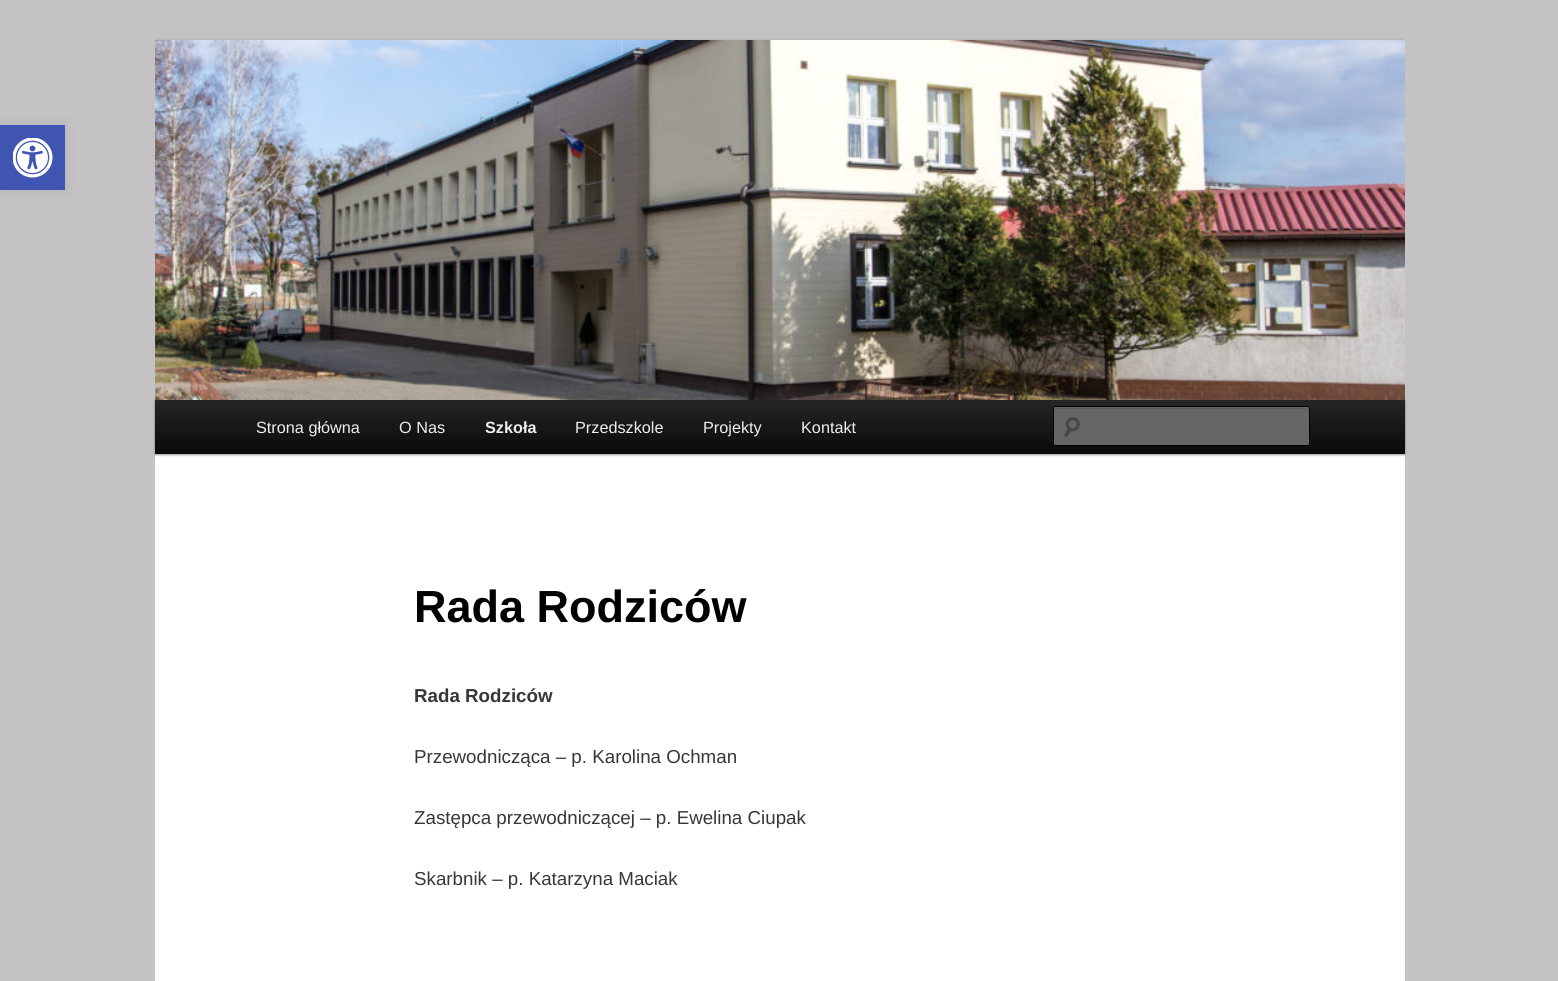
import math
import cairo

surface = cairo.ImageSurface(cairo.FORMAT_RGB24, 1558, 981)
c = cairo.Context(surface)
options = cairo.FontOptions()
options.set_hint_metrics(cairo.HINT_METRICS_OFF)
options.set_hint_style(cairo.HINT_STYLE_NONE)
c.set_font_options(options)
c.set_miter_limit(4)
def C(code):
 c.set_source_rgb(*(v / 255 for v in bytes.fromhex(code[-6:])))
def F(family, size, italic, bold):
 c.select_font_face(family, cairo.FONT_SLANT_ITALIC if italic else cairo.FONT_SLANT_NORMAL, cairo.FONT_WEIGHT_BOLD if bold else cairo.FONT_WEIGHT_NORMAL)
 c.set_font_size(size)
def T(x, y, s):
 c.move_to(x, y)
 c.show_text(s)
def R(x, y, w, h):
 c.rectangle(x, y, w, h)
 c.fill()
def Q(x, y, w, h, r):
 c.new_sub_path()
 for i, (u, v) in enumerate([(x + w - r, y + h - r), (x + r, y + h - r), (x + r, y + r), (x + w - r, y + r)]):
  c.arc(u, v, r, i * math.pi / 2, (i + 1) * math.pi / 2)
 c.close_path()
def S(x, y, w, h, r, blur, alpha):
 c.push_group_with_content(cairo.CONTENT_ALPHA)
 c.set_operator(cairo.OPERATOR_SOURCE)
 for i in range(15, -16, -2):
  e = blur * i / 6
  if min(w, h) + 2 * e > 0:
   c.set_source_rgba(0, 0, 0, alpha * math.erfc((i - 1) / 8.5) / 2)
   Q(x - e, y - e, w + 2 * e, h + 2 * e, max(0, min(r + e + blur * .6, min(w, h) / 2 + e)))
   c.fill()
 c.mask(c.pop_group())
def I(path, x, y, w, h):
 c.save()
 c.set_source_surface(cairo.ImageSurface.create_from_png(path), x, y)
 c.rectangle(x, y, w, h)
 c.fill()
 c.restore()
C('c4c2c2')
c.paint()
C('000000')
S(0,125,65,65,0,6,.1)
C('4054b2')
R(0,125,65,65)
I('1.png',13,138,40,40)
C('ffffff')
R(155,454,1250,527)
C('bbbbbb')
R(155,38,1250,2)
C('000000')
S(155,401,1250,54,0,1,.4)
I('2.png',155,40,1250,360)
gradient = cairo.LinearGradient(780,400,780,454)
gradient.add_color_stop_rgba(0,0.145,0.145,0.145,1)
gradient.add_color_stop_rgba(1,0.039,0.039,0.039,1)
c.set_source(gradient)
R(155,400,1250,54)
F('Liberation Sans',16.25,0,0)
C('eeeeee')
T(256,433,'Strona główna')
T(399,433,'O Nas')
F('Liberation Sans',16.25,0,1)
T(485,433,'Szkoła')
F('Liberation Sans',16.25,0,0)
T(575,433,'Przedszkole')
T(703,433,'Projekty')
T(801,433,'Kontakt')
C('666666')
Q(1053,406,257,40,2.5)
c.fill()
I('3.png',1064,417,16,21)
C('5c5c5c')
c.new_path()
c.move_to(1055,409)
c.line_to(1308,409)
c.line_to(1309,410)
c.line_to(1309,408)
c.line_to(1055,408)
c.curve_to(1054,408,1054,409,1054,410)
c.curve_to(1054,409,1054,409,1055,409)
c.close_path()
c.fill()
Q(1053.5,406.5,256,39,2)
C('000000')
c.set_line_width(1)
c.stroke()
F('Liberation Sans',45,0,1)
T(414,622,'Rada Rodziców')
F('Liberation Sans',18.75,0,1)
C('373737')
T(414,702,'Rada Rodziców')
F('Liberation Sans',18.75,0,0)
T(414,763,'Przewodnicząca – p. Karolina Ochman')
T(414,824,'Zastępca przewodniczącej – p. Ewelina Ciupak')
T(414,885,'Skarbnik – p. Katarzyna Maciak')
surface.write_to_png('o.png')
